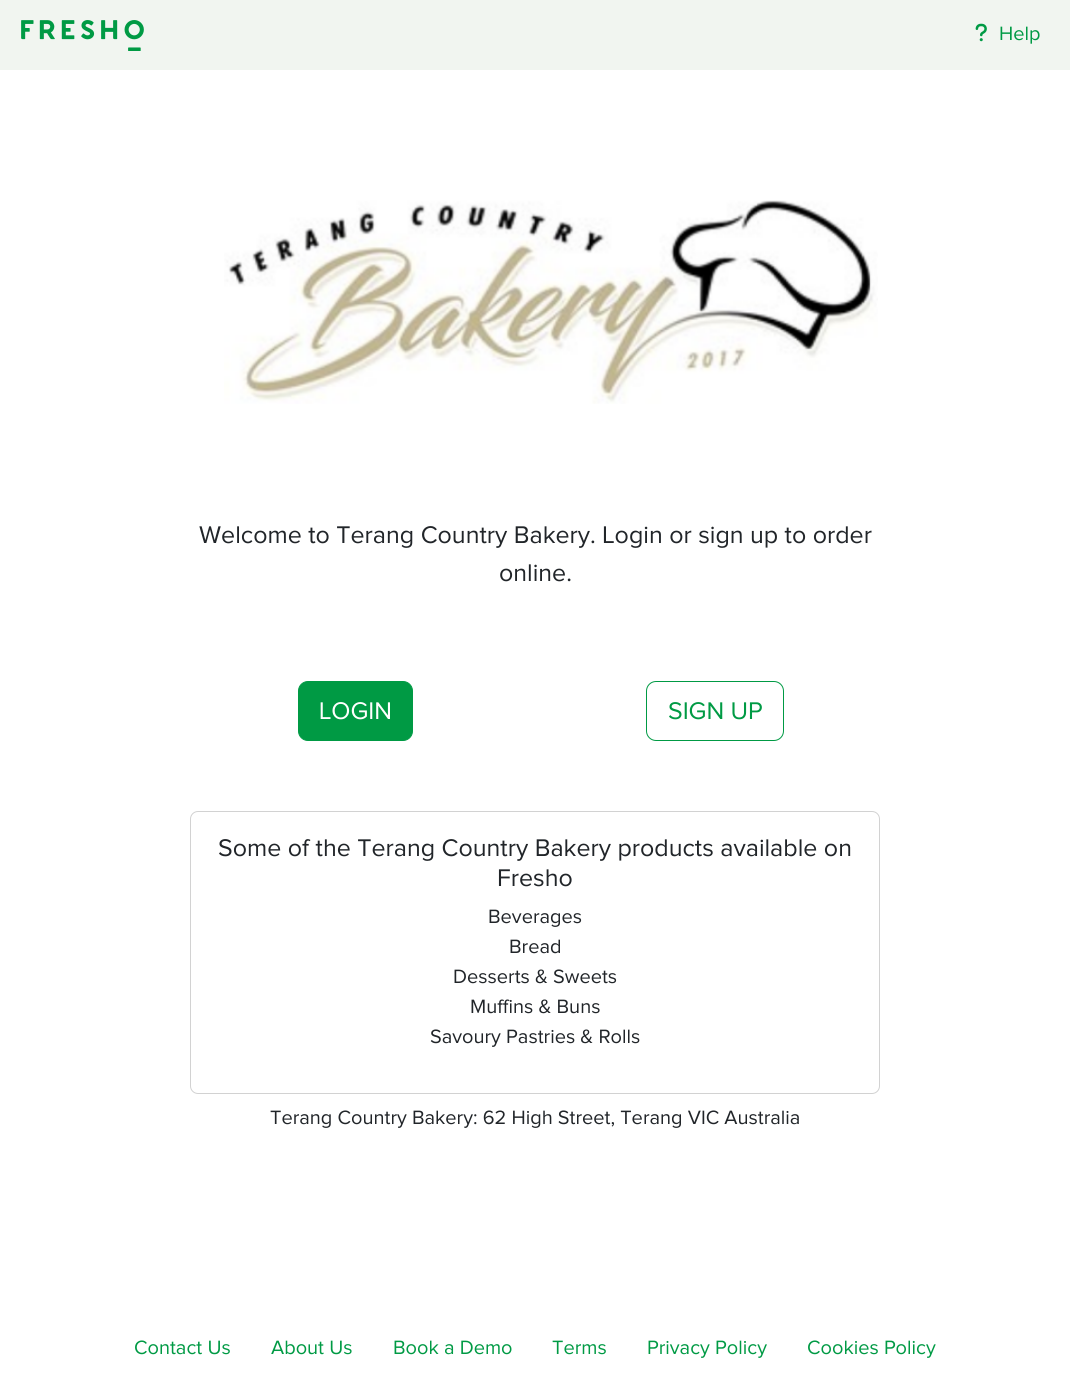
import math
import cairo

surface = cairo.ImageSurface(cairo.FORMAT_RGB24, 1070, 1373)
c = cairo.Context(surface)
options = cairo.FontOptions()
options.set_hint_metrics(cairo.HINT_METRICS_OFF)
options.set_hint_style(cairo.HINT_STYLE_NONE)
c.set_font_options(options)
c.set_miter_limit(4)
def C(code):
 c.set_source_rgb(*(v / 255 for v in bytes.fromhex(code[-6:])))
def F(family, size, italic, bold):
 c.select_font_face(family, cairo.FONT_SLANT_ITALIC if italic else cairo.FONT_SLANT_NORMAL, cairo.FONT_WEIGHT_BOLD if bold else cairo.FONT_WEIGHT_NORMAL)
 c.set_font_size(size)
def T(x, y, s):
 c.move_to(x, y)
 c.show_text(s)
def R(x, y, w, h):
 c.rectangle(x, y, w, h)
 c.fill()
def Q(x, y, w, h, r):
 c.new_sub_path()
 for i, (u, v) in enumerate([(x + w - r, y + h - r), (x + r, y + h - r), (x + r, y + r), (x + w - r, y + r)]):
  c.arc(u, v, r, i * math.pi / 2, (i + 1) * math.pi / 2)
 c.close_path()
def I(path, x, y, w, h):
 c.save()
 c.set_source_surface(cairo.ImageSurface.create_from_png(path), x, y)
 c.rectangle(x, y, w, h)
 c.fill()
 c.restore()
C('ffffff')
c.paint()
C('f1f5f0')
R(0,0,1070,70)
I('1.png',21,20,123,31)
I('2.png',975,23,12,19)
F('Proxima Nova',20,0,0)
C('009a44')
T(999,40,'Help')
I('3.png',224,200,654,204)
F('Proxima Nova',25,0,0)
C('212529')
T(199,543,'Welcome to Terang Country Bakery. Login or sign up to order')
T(499,581,'online.')
C('009a44')
Q(298.5,681.5,114,59,9.5)
c.fill_preserve()
c.set_line_width(1)
c.stroke()
C('ffffff')
T(319,719,'LOGIN')
Q(646.5,681.5,137,59,9.5)
C('009a44')
c.stroke()
T(668,719,'SIGN UP')
Q(190.5,811.5,689,282,7.5)
C('d2d2d2')
c.stroke()
C('212529')
T(218,856,'Some of the Terang Country Bakery products available on')
T(497,886,'Fresho')
F('Proxima Nova',20,0,0)
T(488,923,'Beverages')
T(509,953,'Bread')
T(453,983,'Desserts & Sweets')
T(470,1013,'Muffins & Buns')
T(430,1043,'Savoury Pastries & Rolls')
T(270,1124,'Terang Country Bakery: 62 High Street, Terang VIC Australia')
C('009a44')
T(134,1354,'Contact Us')
T(271,1354,'About Us')
T(393,1354,'Book a Demo')
T(552,1354,'Terms')
T(647,1354,'Privacy Policy')
T(807,1354,'Cookies Policy')
surface.write_to_png('o.png')
